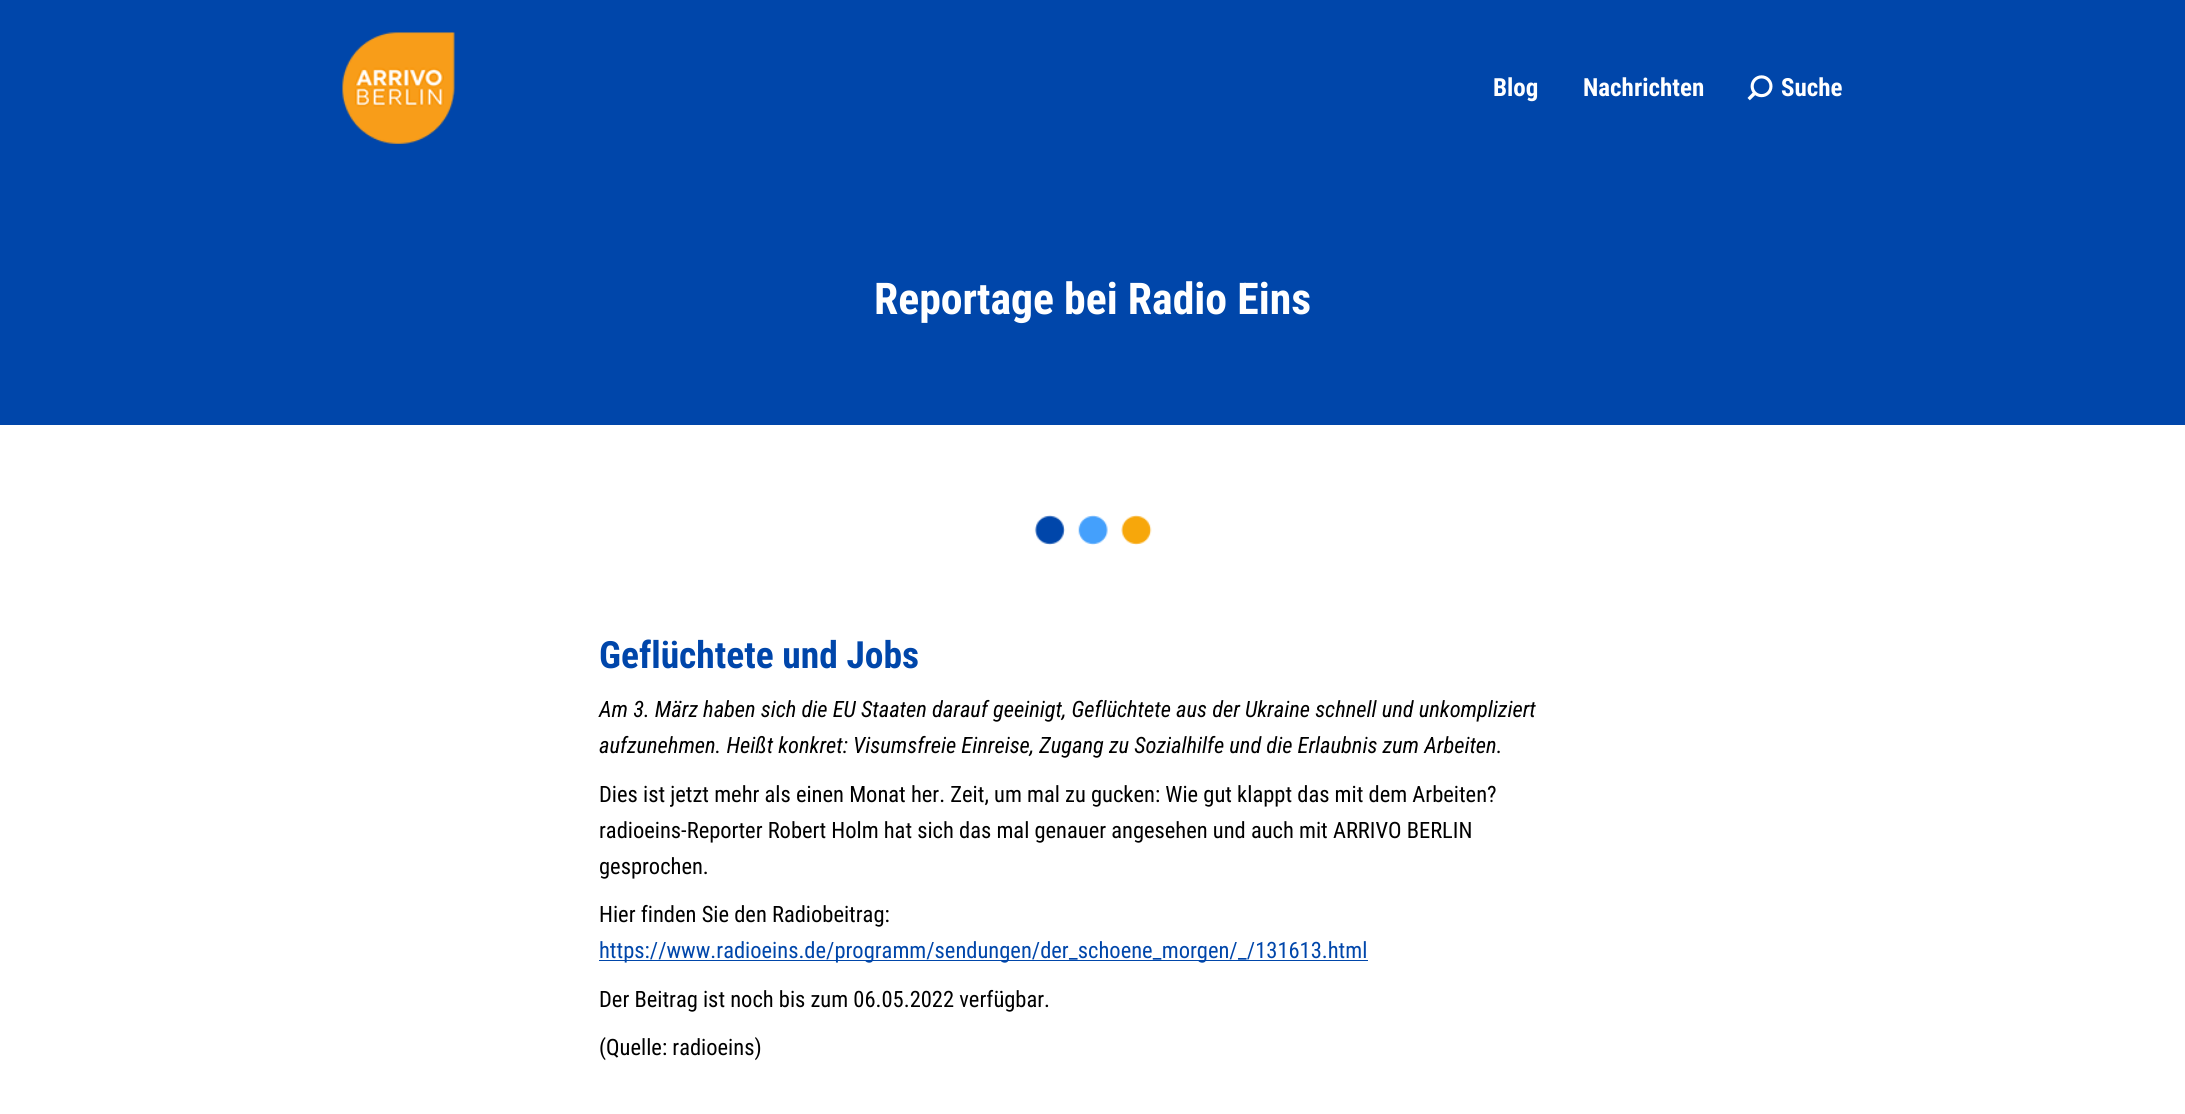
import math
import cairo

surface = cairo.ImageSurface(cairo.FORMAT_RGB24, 2185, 1114)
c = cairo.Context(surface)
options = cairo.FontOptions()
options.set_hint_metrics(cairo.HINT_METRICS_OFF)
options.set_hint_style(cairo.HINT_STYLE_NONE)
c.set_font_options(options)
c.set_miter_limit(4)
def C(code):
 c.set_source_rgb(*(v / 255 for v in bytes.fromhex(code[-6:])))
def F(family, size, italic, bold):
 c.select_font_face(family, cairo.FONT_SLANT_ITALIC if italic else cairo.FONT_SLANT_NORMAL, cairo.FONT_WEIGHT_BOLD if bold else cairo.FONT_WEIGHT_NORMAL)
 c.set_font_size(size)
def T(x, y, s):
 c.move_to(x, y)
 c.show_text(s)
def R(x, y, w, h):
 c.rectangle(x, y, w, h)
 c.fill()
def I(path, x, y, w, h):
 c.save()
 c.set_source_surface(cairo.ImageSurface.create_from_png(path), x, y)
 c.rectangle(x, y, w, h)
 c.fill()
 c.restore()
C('ffffff')
c.paint()
C('0046aa')
R(0,0,2185,425)
I('1.png',342,32,113,112)
F('Roboto Condensed',25,0,1)
C('ffffff')
T(1493,96,'Blog')
T(1583,96,'Nachrichten')
I('2.png',1747,75,26,26)
T(1781,96,'Suche')
F('Roboto Condensed',43.75,0,1)
T(874,314,'Reportage bei Radio Eins')
I('3.png',1034,515,118,30)
F('Roboto Condensed',37.5,0,1)
C('0046aa')
T(599,668,'Geflüchtete und Jobs')
F('Roboto Condensed',22.5,1,0)
C('000000')
T(599,717,'Am 3. März haben sich die EU Staaten darauf geeinigt, Geflüchtete aus der Ukraine schnell und unkompliziert')
T(599,753,'aufzunehmen. Heißt konkret: Visumsfreie Einreise, Zugang zu Sozialhilfe und die Erlaubnis zum Arbeiten.')
F('Roboto Condensed',22.5,0,0)
T(599,802,'Dies ist jetzt mehr als einen Monat her. Zeit, um mal zu gucken: Wie gut klappt das mit dem Arbeiten?')
T(599,838,'radioeins-Reporter Robert Holm hat sich das mal genauer angesehen und auch mit ARRIVO BERLIN')
T(599,874,'gesprochen.')
T(599,922,'Hier finden Sie den Radiobeitrag:')
C('0046aa')
R(599,960,769,1)
T(599,958,'https://www.radioeins.de/programm/sendungen/der_schoene_morgen/_/131613.html')
C('000000')
T(599,1007,'Der Beitrag ist noch bis zum 06.05.2022 verfügbar.')
T(599,1055,'(Quelle: radioeins)')
surface.write_to_png('o.png')
